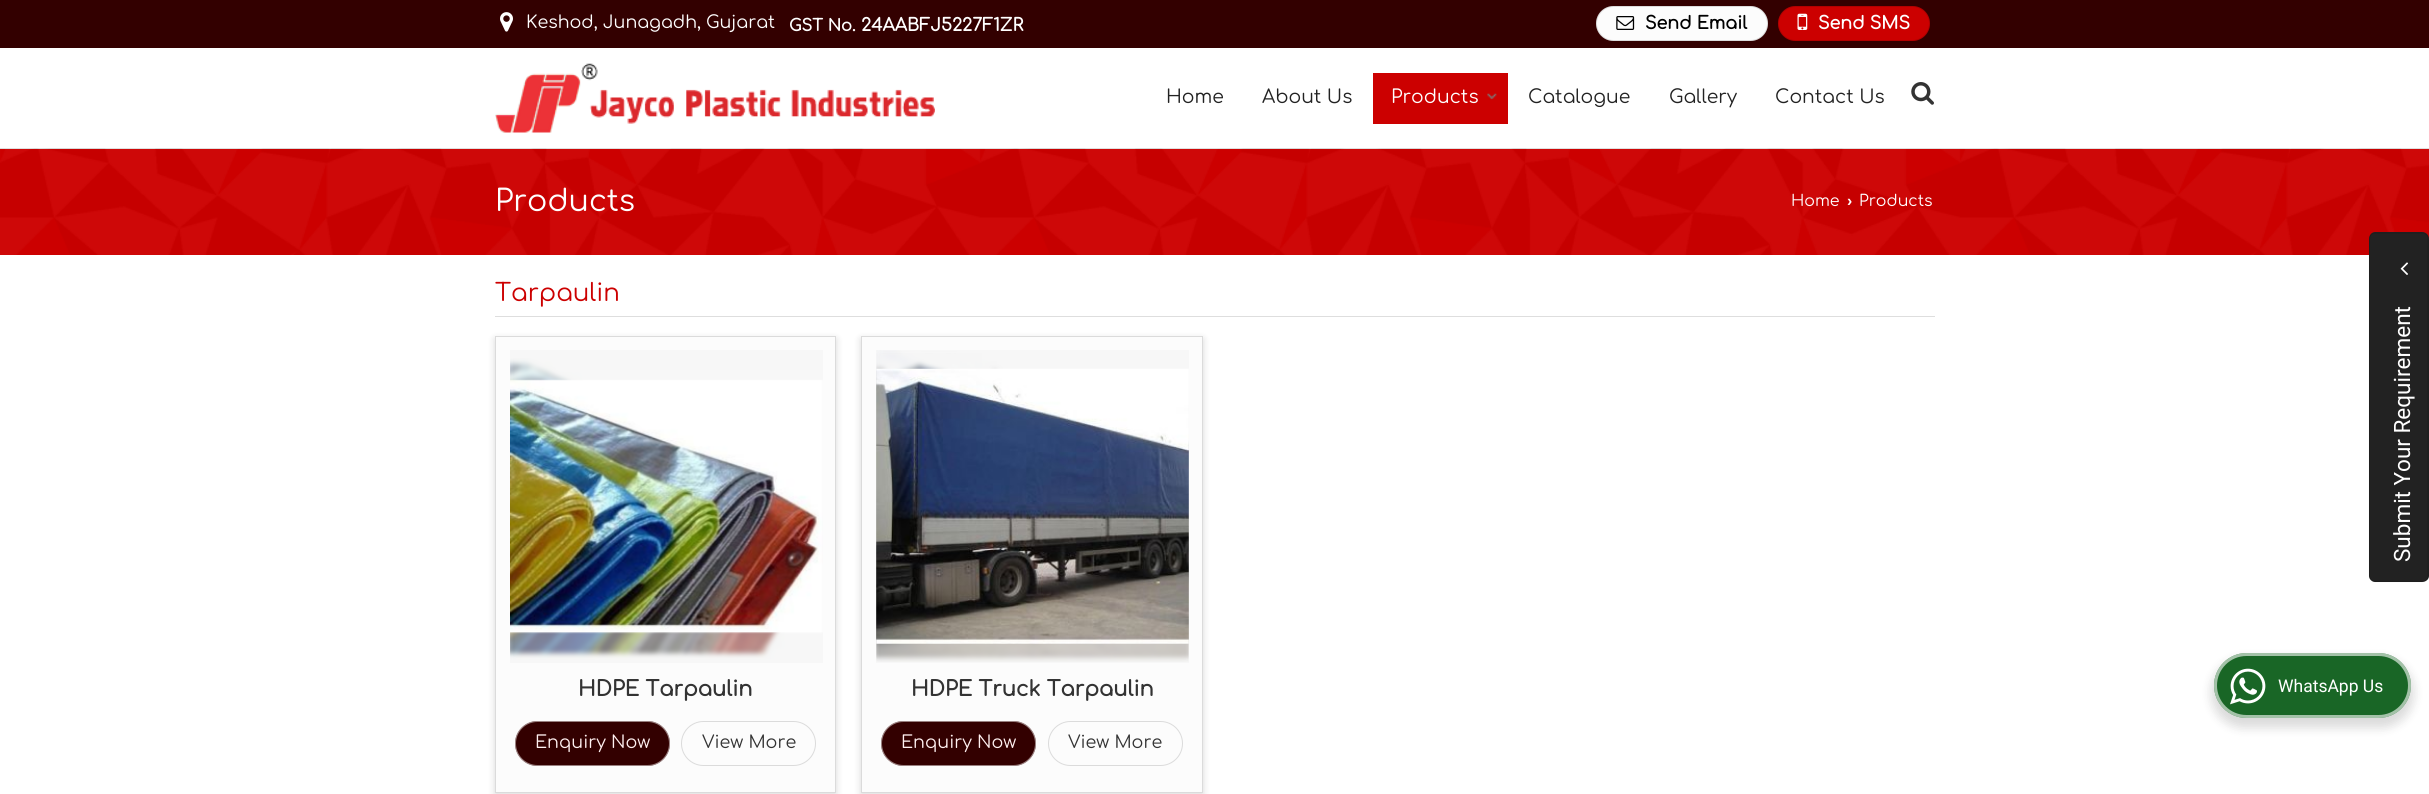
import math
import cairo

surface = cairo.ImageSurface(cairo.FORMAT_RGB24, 2429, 794)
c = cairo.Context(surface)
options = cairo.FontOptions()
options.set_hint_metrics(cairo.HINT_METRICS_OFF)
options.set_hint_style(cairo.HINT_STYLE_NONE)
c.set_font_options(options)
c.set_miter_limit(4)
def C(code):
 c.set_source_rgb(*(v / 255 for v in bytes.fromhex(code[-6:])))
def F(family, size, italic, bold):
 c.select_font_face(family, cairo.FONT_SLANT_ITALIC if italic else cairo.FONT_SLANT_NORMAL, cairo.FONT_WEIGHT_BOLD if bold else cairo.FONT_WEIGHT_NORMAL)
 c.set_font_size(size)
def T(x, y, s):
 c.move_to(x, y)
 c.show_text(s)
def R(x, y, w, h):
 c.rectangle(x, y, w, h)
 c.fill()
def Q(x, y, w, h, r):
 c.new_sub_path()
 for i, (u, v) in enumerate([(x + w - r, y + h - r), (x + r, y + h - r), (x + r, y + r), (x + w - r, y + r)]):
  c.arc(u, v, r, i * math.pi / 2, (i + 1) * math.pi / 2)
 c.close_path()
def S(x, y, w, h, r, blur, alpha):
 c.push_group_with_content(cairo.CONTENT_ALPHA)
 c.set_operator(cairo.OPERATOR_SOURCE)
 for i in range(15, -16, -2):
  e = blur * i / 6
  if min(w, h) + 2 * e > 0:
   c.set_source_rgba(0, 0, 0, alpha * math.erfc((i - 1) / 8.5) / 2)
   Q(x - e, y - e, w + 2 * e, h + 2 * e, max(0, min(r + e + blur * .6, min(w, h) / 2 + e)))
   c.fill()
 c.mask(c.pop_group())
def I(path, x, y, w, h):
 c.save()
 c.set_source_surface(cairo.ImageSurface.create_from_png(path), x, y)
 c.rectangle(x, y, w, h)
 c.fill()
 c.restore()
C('ffffff')
c.paint()
C('330000')
R(0,0,2429,48)
I('1.png',500,12,13,20)
F('Comfortaa',17.5,0,0)
C('ffffff')
T(526,28,'Keshod, Junagadh, Gujarat')
F('Comfortaa',16.25,0,1)
T(789,31,'GST No.')
F('Comfortaa',17.5,0,1)
T(861,31,'24AABFJ5227F1ZR')
C('fcfcfc')
Q(1596,6,172,35,17.5)
c.fill()
Q(1596.5,6.5,171,34,17)
c.set_source_rgba(0,0,0,0.13)
c.set_line_width(1)
c.stroke()
I('2.png',1616,16,19,14)
C('000000')
T(1645,29,'Send Email')
C('cc0000')
Q(1778,6,152,35,17.5)
c.fill()
Q(1778.5,6.5,151,34,17)
c.set_source_rgba(0,0,0,0.13)
c.stroke()
I('3.png',1797,13,11,17)
C('ffffff')
T(1818,29,'Send SMS')
C('dedede')
R(0,148,2429,1)
I('4.png',495,63,440,70)
F('Comfortaa',18.75,0,0)
C('222222')
T(1166,103,'Home')
T(1262,103,'About Us')
C('cc0000')
R(1373,73,135,51)
C('ffffff')
T(1391,103,'Products')
I('5.png',1487,93,10,7)
C('222222')
T(1528,103,'Catalogue')
T(1669,103,'Gallery')
T(1775,103,'Contact Us')
I('6.png',1911,82,23,23)
C('cc0000')
R(0,149,2429,106)
I('7.png',0,148,2429,107)
F('Comfortaa',30,0,0)
C('ffffff')
T(495,211,'Products')
F('Comfortaa',15.75,0,0)
T(1791,206,'Home')
F('Liberation Sans',15.75,0,1)
T(1847,206,'›')
F('Comfortaa',15.75,0,0)
T(1859,206,'Products')
C('dedede')
R(495,316,1440,1)
F('Comfortaa',24.5,0,0)
C('cc0000')
T(495,301,'Tarpaulin')
C('000000')
S(495,339,341,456,0,4,.15)
C('fcfcfc')
c.rectangle(495.5,336.5,340,456)
c.fill_preserve()
C('dbdbdb')
c.stroke()
C('f7f7f7')
R(510,350,313,313)
I('8.png',510,358,311,302)
c.save()
c.rectangle(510,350,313,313)
c.clip()
C('f7f7f7')
S(510,350,313,313,0,2.5,.5)
c.restore()
I('9.png',510,379,313,255)
F('Comfortaa',21,0,1)
C('333333')
T(578,696,'HDPE Tarpaulin')
C('330000')
Q(515,721,155,45,22.5)
c.fill()
Q(515.5,721.5,154,44,22)
c.set_source_rgba(1,1,1,0.5)
c.stroke()
F('Comfortaa',17.5,0,0)
C('fff1f1')
T(535,748,'Enquiry Now')
Q(681.5,721.5,134,44,22)
C('dbdbdb')
c.stroke()
C('333333')
T(702,748,'View More')
C('000000')
S(861,339,342,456,0,4,.15)
C('fcfcfc')
c.rectangle(861.5,336.5,341,456)
c.fill_preserve()
C('dbdbdb')
c.stroke()
C('f7f7f7')
R(876,350,313,313)
I('10.png',876,350,313,312)
c.save()
c.rectangle(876,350,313,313)
c.clip()
C('f7f7f7')
S(876,350,313,313,0,2.5,.5)
c.restore()
I('11.png',876,368,313,276)
F('Comfortaa',21,0,1)
C('333333')
T(911,696,'HDPE Truck Tarpaulin')
C('330000')
Q(881,721,155,45,22.5)
c.fill()
Q(881.5,721.5,154,44,22)
c.set_source_rgba(1,1,1,0.5)
c.stroke()
F('Comfortaa',17.5,0,0)
C('fff1f1')
T(901,748,'Enquiry Now')
Q(1048.5,721.5,134,44,22)
C('dbdbdb')
c.stroke()
C('333333')
T(1068,748,'View More')
C('222222')
c.new_path()
c.move_to(2369,576)
c.line_to(2369,239)
c.curve_to(2369,235,2372,232,2375,232)
c.line_to(2422,232)
c.curve_to(2426,232,2429,235,2429,239)
c.line_to(2429,576)
c.curve_to(2429,579,2426,582,2422,582)
c.line_to(2375,582)
c.curve_to(2372,582,2369,579,2369,576)
c.close_path()
c.fill()
c.new_path()
c.move_to(2369.5,576)
c.line_to(2369.5,238.5)
c.curve_to(2369.5,235.5,2372,233,2375,233)
c.line_to(2422.5,233)
c.curve_to(2425.5,233,2428,235.5,2428,238.5)
c.line_to(2428,576)
c.curve_to(2428,579,2425.5,581.5,2422.5,581.5)
c.line_to(2375,581.5)
c.curve_to(2372,581.5,2369.5,579,2369.5,576)
c.close_path()
c.set_source_rgba(0,0,0,0.13)
c.set_line_width(1.2)
c.stroke()
I('12.png',2400,262,8,13)
F('Roboto',22.5,0,0)
C('ffffff')
c.save()
c.translate(2410,562)
c.rotate(-90 * math.pi / 180)
T(0,0,'Submit Your Requirement')
c.restore()
C('000000')
S(2211,658,203,70,35,5,.14)
C('196626')
Q(2214,653,197,65,32.5)
c.fill()
Q(2215.5,654.5,194,62,31)
c.set_source_rgba(1,1,1,0.6)
c.set_line_width(3)
c.stroke()
I('13.png',2230,668,36,37)
F('Roboto',17.5,0,0)
C('ffffff')
T(2278,692,'WhatsApp Us')
surface.write_to_png('o.png')
